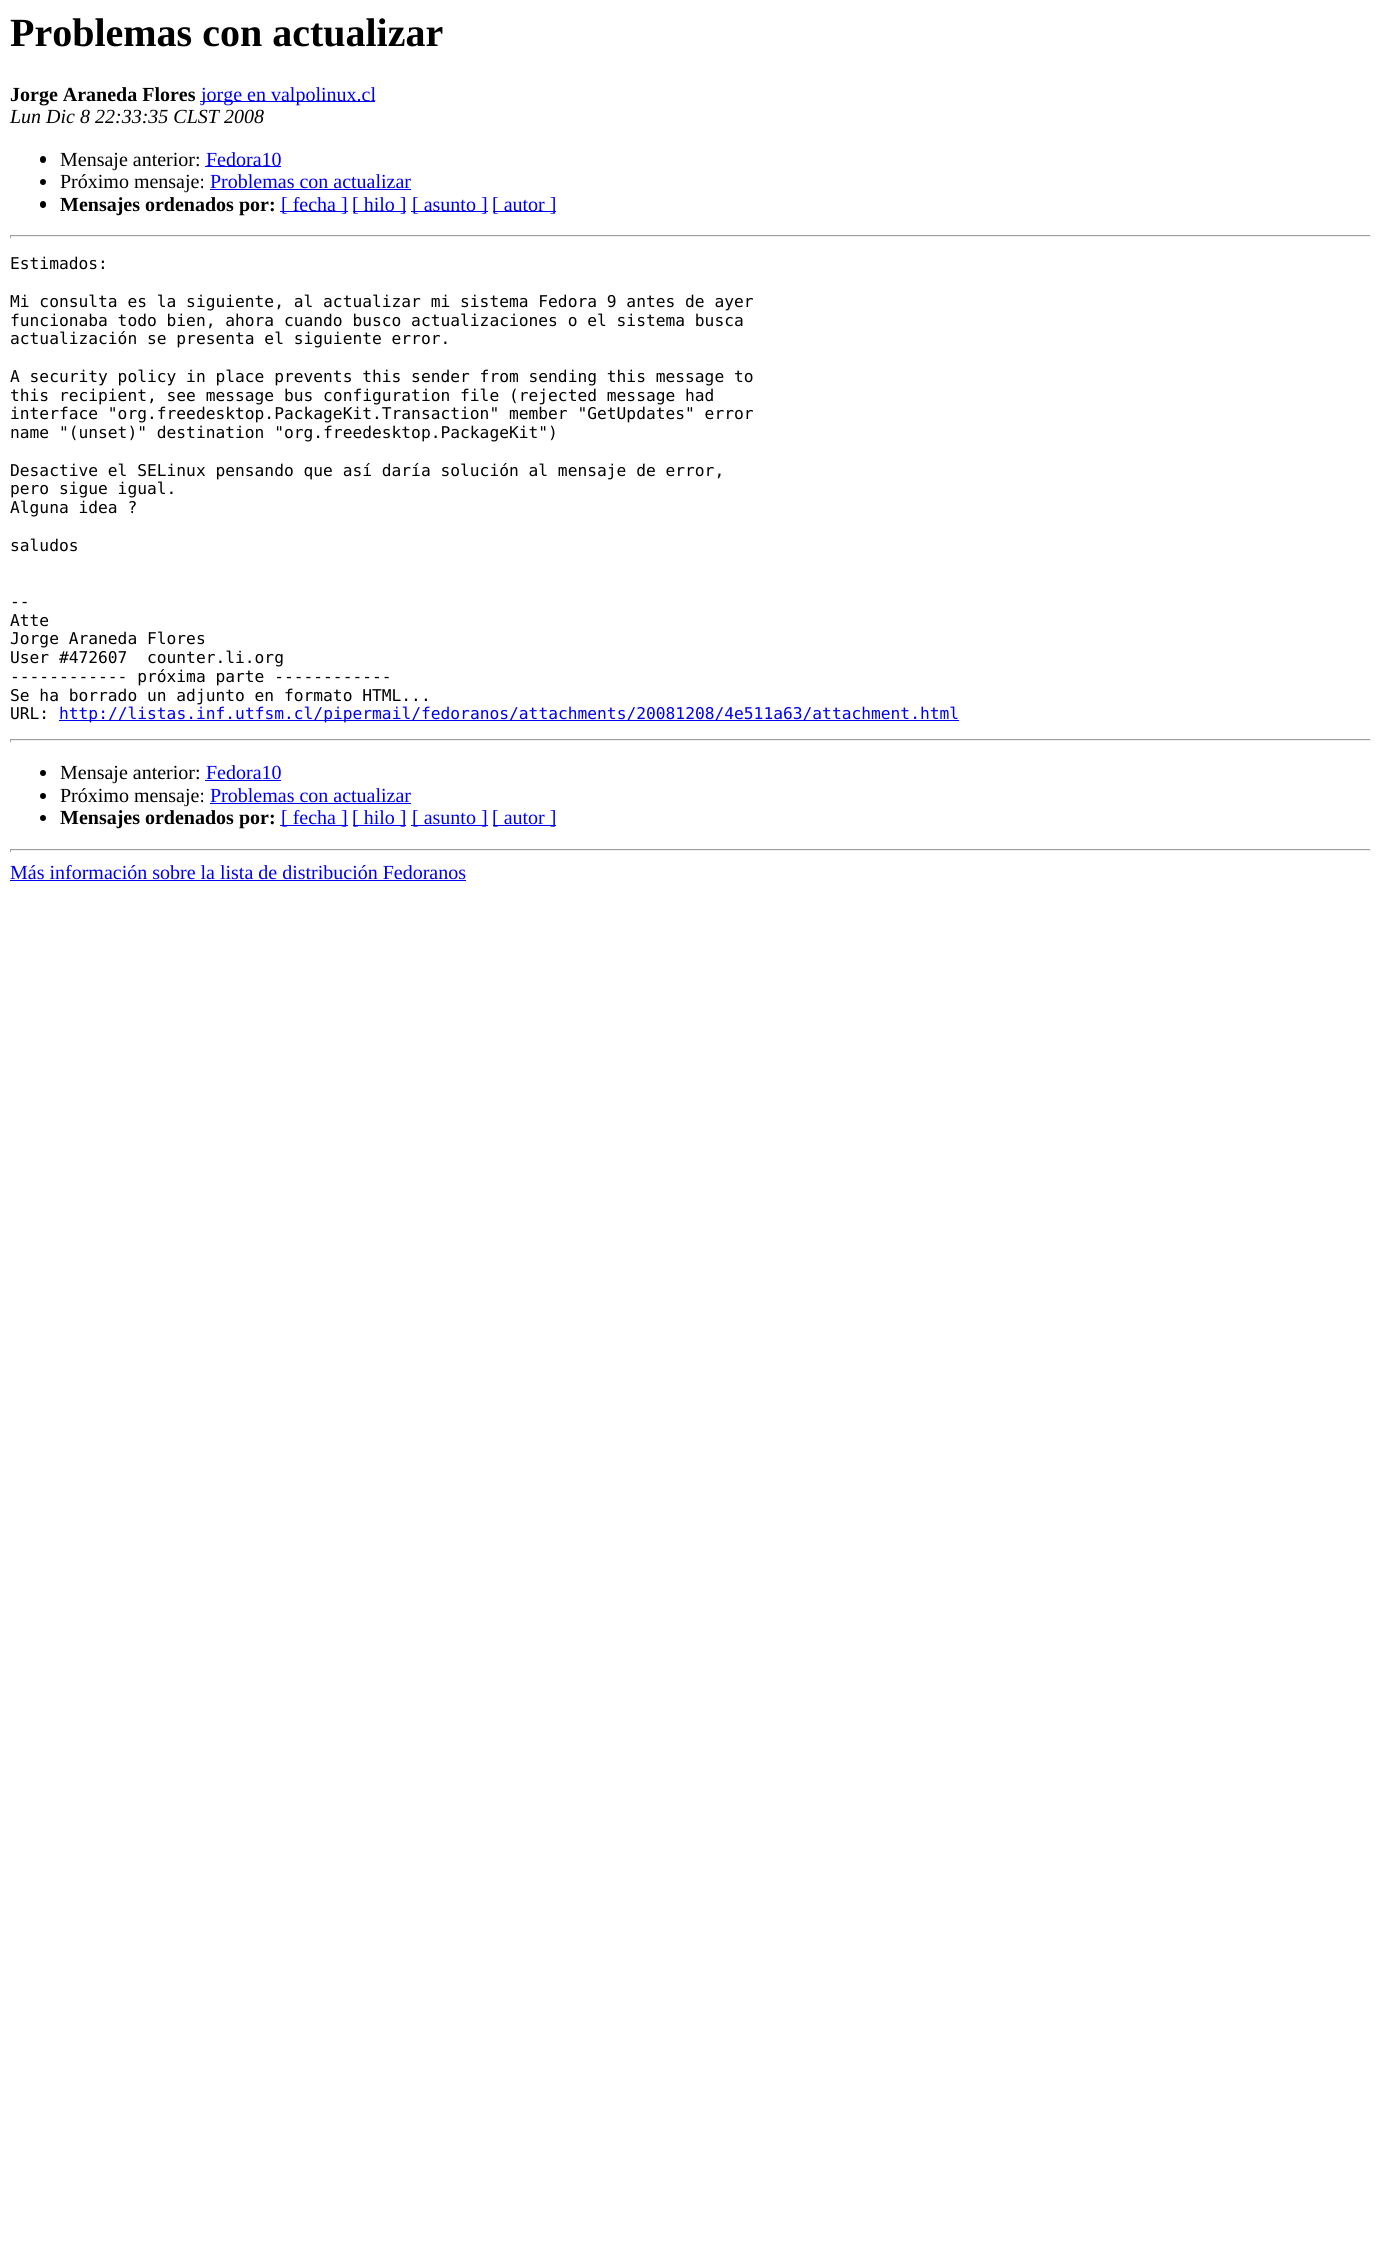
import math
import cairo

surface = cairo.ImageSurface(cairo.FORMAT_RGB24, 1381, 2261)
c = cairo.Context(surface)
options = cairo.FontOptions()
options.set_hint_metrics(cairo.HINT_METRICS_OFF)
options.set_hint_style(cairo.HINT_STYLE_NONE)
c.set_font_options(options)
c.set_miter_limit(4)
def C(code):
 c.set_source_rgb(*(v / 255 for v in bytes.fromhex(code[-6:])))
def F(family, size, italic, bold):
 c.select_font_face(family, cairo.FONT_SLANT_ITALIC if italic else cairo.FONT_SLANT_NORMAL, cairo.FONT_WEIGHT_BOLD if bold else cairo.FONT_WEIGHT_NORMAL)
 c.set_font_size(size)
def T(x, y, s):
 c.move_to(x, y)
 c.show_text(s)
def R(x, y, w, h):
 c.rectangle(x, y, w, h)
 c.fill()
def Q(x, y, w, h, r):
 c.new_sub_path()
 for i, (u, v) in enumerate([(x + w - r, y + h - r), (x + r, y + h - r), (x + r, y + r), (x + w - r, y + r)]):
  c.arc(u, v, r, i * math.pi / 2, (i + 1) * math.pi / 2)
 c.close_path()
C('ffffff')
c.paint()
F('Liberation Serif',40,0,1)
C('000000')
T(10,46,'Problemas con actualizar')
F('Liberation Serif',20,0,1)
T(10,101,'Jorge Araneda Flores')
C('0000ee')
R(200,101,175,1)
F('Liberation Serif',20,0,0)
T(201,101,'jorge en valpolinux.cl')
F('Liberation Serif',20,1,0)
C('000000')
T(10,123,'Lun Dic 8 22:33:35 CLST 2008')
Q(40,156,6,7,3)
c.fill()
F('Liberation Serif',20,0,0)
T(60,166,'Mensaje anterior:')
C('0000ee')
R(205,166,76,1)
T(206,166,'Fedora10')
C('000000')
c.new_path()
c.arc(43,182,3,0,2 * math.pi)
c.fill()
T(60,188,'Próximo mensaje:')
C('0000ee')
T(210,188,'Problemas con actualizar')
R(210,189,201,1)
C('000000')
Q(40,201,6,7,3)
c.fill()
F('Liberation Serif',20,0,1)
T(60,211,'Mensajes ordenados por:')
C('0000ee')
R(280,211,68,1)
F('Liberation Serif',20,0,0)
T(281,211,'[ fecha ]')
R(353,211,53,1)
T(352,211,'[ hilo ]')
R(411,211,77,1)
T(412,211,'[ asunto ]')
R(493,211,63,1)
T(492,211,'[ autor ]')
C('9f9f9f')
R(10,235,1361,1)
C('eeeeee')
R(1370,235,1,3)
R(10,236,1361,1)
C('9f9f9f')
R(10,235,1,3)
F('DejaVu Sans Mono',16.25,0,0)
C('000000')
T(10,269,'Estimados:')
T(10,307,'Mi consulta es la siguiente, al actualizar mi sistema Fedora 9 antes de ayer')
T(10,326,'funcionaba todo bien, ahora cuando busco actualizaciones o el sistema busca')
T(10,344,'actualización se presenta el siguiente error.')
T(10,382,'A security policy in place prevents this sender from sending this message to')
T(10,401,'this recipient, see message bus configuration file (rejected message had')
T(10,419,'interface "org.freedesktop.PackageKit.Transaction" member "GetUpdates" error')
T(10,438,'name "(unset)" destination "org.freedesktop.PackageKit")')
T(10,476,'Desactive el SELinux pensando que así daría solución al mensaje de error,')
T(10,494,'pero sigue igual.')
T(10,513,'Alguna idea ?')
T(10,551,'saludos')
T(10,607,'--')
T(10,626,'Atte')
T(10,644,'Jorge Araneda Flores')
T(10,663,'User #472607  counter.li.org')
T(10,682,'------------ próxima parte ------------')
T(10,701,'Se ha borrado un adjunto en formato HTML...')
T(10,719,'URL:')
C('0000ee')
R(59,720,900,1)
T(59,719,'http://listas.inf.utfsm.cl/pipermail/fedoranos/attachments/20081208/4e511a63/attachment.html')
C('9f9f9f')
R(10,739,1361,1)
C('eeeeee')
R(1370,739,1,3)
R(10,740,1361,1)
C('9f9f9f')
R(10,739,1,3)
C('000000')
c.new_path()
c.arc(43,773,3,0,2 * math.pi)
c.fill()
F('Liberation Serif',20,0,0)
T(60,779,'Mensaje anterior:')
C('0000ee')
T(206,779,'Fedora10')
R(205,780,76,1)
C('000000')
c.new_path()
c.arc(43,796,3,0,2 * math.pi)
c.fill()
T(60,802,'Próximo mensaje:')
C('0000ee')
T(210,802,'Problemas con actualizar')
R(210,803,201,1)
C('000000')
c.new_path()
c.arc(43,818,3,0,2 * math.pi)
c.fill()
F('Liberation Serif',20,0,1)
T(60,824,'Mensajes ordenados por:')
C('0000ee')
R(280,825,68,1)
F('Liberation Serif',20,0,0)
T(281,824,'[ fecha ]')
R(353,825,53,1)
T(352,824,'[ hilo ]')
R(411,825,77,1)
T(412,824,'[ asunto ]')
R(493,825,63,1)
T(492,824,'[ autor ]')
C('9f9f9f')
R(10,849,1361,1)
C('eeeeee')
R(1370,849,1,3)
R(10,850,1361,1)
C('9f9f9f')
R(10,849,1,3)
C('0000ee')
T(10,879,'Más información sobre la lista de distribución Fedoranos')
R(10,880,456,1)
surface.write_to_png('o.png')
